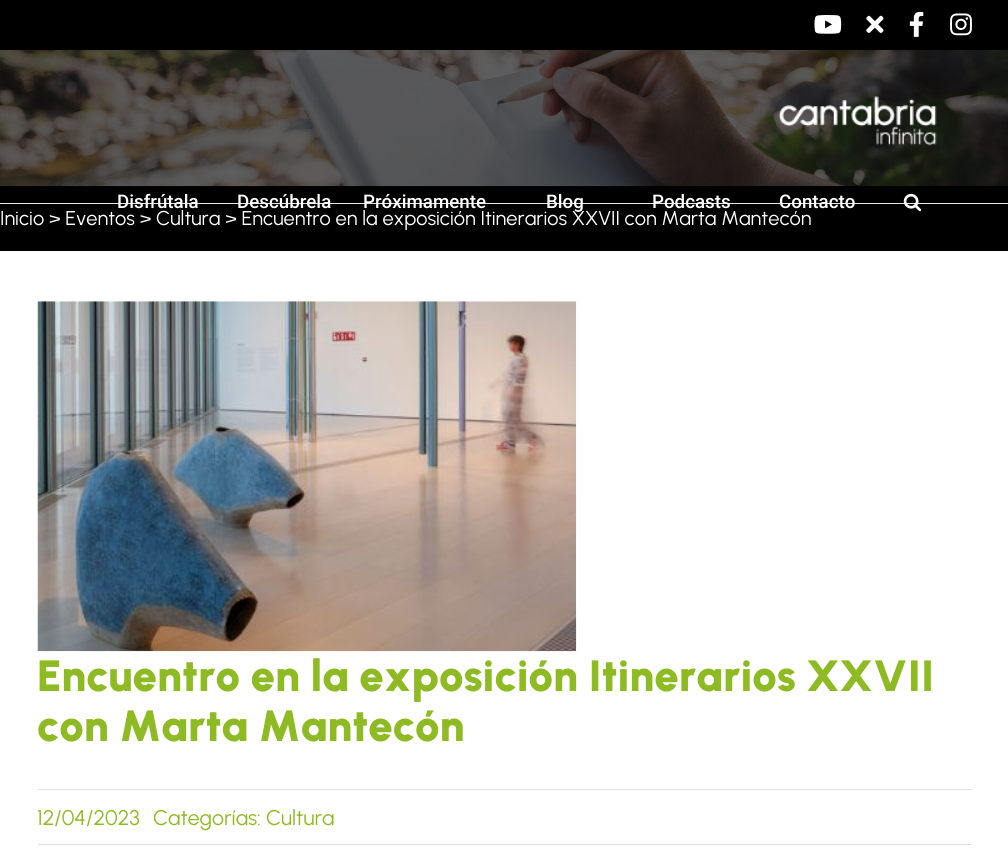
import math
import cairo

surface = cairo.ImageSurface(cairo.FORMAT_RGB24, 1008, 856)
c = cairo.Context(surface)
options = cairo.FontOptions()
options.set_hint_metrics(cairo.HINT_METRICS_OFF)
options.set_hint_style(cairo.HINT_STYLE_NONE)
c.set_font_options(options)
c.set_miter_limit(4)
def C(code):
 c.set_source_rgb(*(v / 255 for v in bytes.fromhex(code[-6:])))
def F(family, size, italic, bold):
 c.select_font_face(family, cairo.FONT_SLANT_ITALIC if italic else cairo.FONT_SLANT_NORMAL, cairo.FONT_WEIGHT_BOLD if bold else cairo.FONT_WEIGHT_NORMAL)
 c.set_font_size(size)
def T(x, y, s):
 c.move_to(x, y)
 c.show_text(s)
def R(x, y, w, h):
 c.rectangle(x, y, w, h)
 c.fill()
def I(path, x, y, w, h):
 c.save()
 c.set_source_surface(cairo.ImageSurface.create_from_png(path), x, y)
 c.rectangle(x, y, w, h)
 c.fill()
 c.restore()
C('ffffff')
c.paint()
C('000000')
R(0,0,1008,50)
I('1.png',814,15,28,19)
I('2.png',866,15,18,18)
I('3.png',909,11,15,26)
I('4.png',950,13,22,23)
R(0,186,1008,17)
I('7.png',0,50,1008,137)
c.set_source_rgba(0,0,0,0.39)
R(0,50,1008,137)
C('e5e5e5')
R(0,203,1008,1)
I('5.png',778,96,159,50)
C('000000')
R(0,204,1008,47)
F('Roboto Medium',18.75,0,0)
C('ffffff')
T(117,208,'Disfrútala')
T(237,208,'Descúbrela')
T(363,208,'Próximamente')
T(546,208,'Blog')
T(652,208,'Podcasts')
T(779,208,'Contacto')
I('6.png',903,193,19,19)
F('Urbanist',20,0,0)
T(0,225,'Inicio > Eventos > Cultura > Encuentro en la exposición Itinerarios XXVII con Marta Mantecón')
I('8.png',37,301,540,351)
F('Urbanist Black',43.75,0,0)
C('8ebb23')
T(37,691,'Encuentro en la exposición Itinerarios XXVII')
T(37,741,'con Marta Mantecón')
C('e0dede')
R(38,789,933,1)
R(38,844,933,1)
F('Urbanist',21.25,0,0)
C('8ebb23')
T(37,825,'12/04/2023')
T(153,825,'Categorías: Cultura')
surface.write_to_png('o.png')
